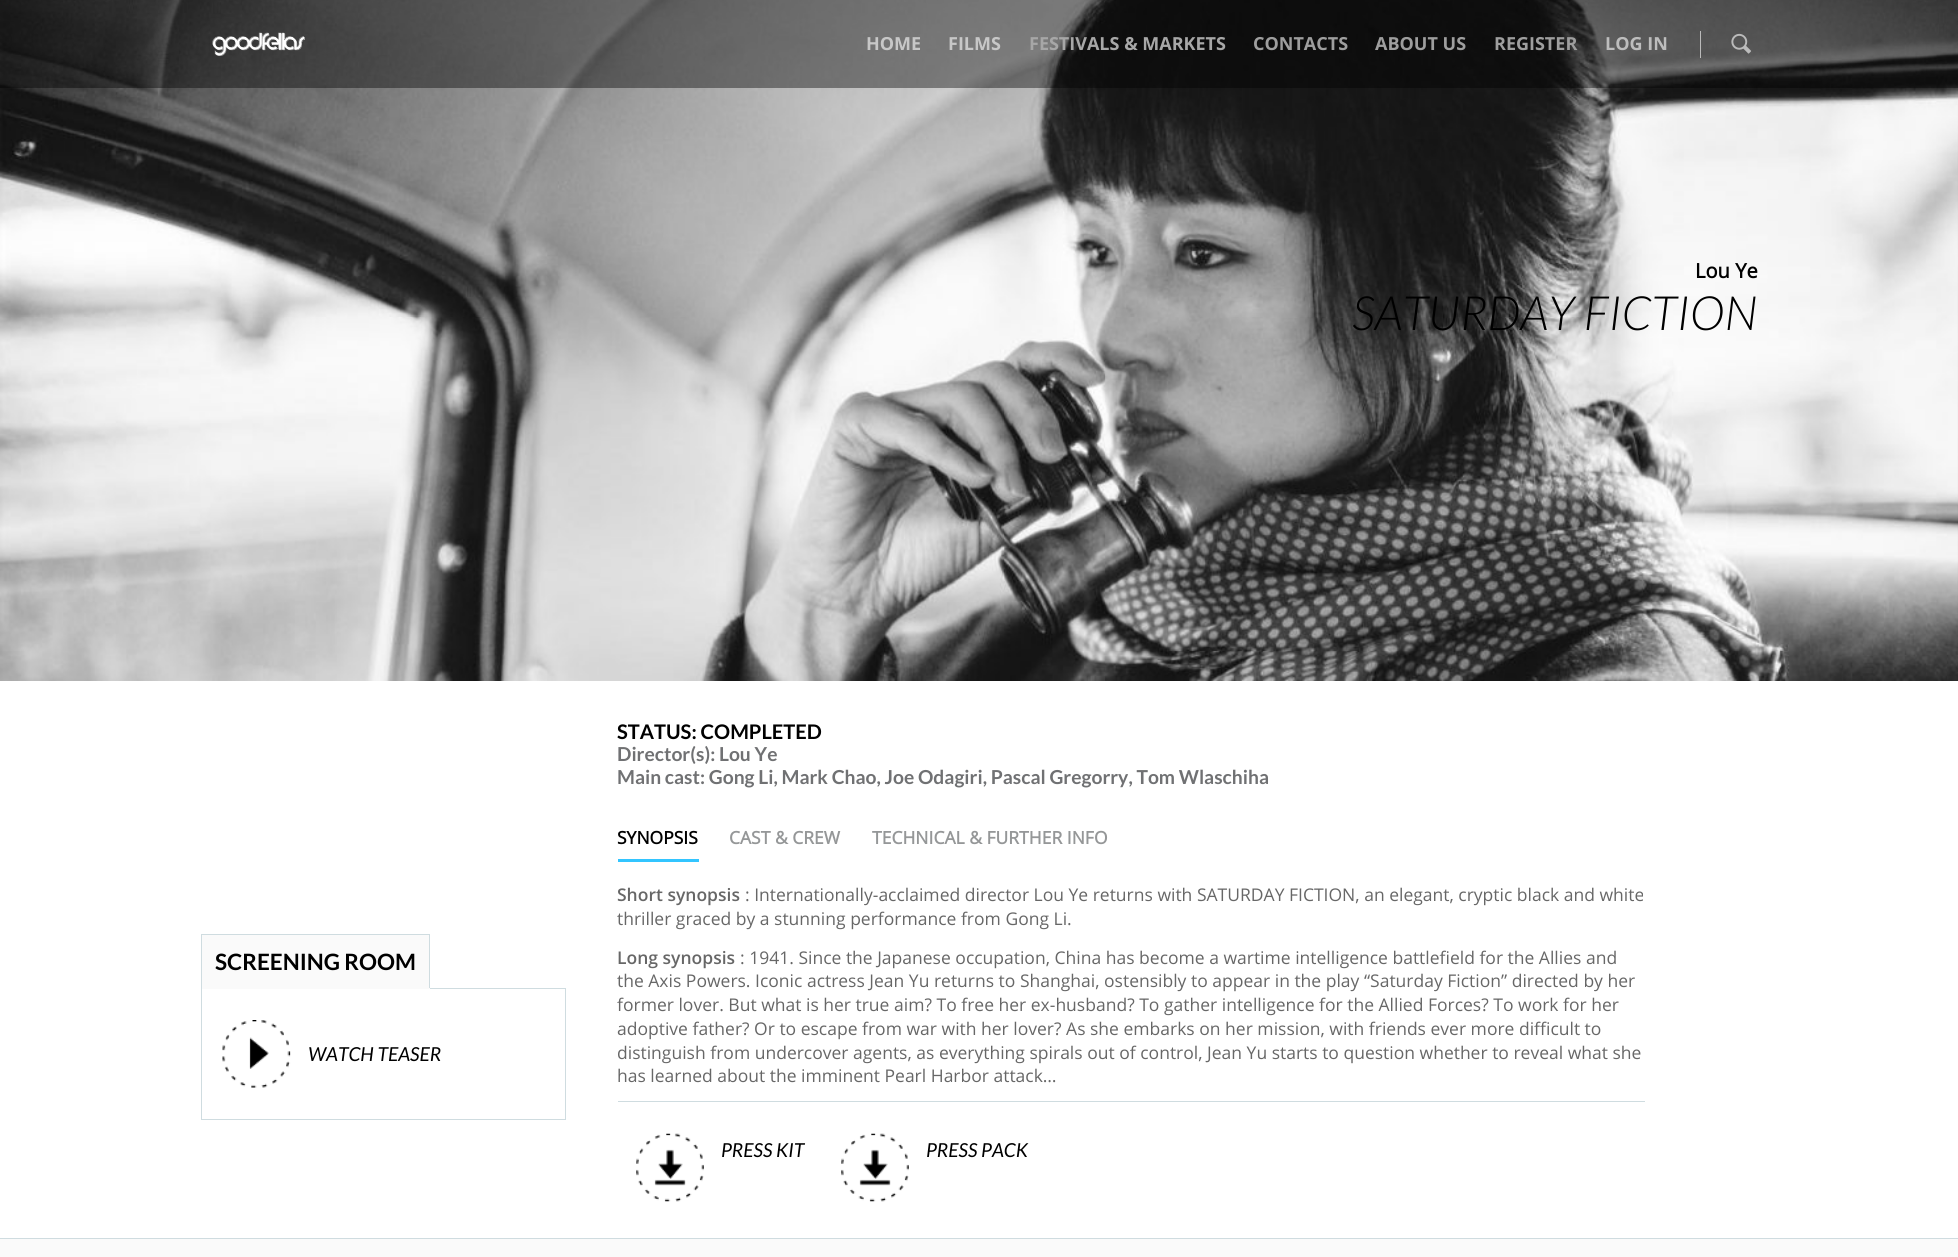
import math
import cairo

surface = cairo.ImageSurface(cairo.FORMAT_RGB24, 1958, 1257)
c = cairo.Context(surface)
options = cairo.FontOptions()
options.set_hint_metrics(cairo.HINT_METRICS_OFF)
options.set_hint_style(cairo.HINT_STYLE_NONE)
c.set_font_options(options)
c.set_miter_limit(4)
def C(code):
 c.set_source_rgb(*(v / 255 for v in bytes.fromhex(code[-6:])))
def F(family, size, italic, bold):
 c.select_font_face(family, cairo.FONT_SLANT_ITALIC if italic else cairo.FONT_SLANT_NORMAL, cairo.FONT_WEIGHT_BOLD if bold else cairo.FONT_WEIGHT_NORMAL)
 c.set_font_size(size)
def T(x, y, s):
 c.move_to(x, y)
 c.show_text(s)
def R(x, y, w, h):
 c.rectangle(x, y, w, h)
 c.fill()
def I(path, x, y, w, h):
 c.save()
 c.set_source_surface(cairo.ImageSurface.create_from_png(path), x, y)
 c.rectangle(x, y, w, h)
 c.fill()
 c.restore()
C('ffffff')
c.paint()
I('3.png',0,0,1958,681)
c.set_source_rgba(0,0,0,0.4)
R(0,0,1958,88)
I('1.png',212,32,93,24)
F('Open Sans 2',18,0,1)
C('c7c7c7')
T(866,50,'HOME')
T(948,50,'FILMS')
C('a7a7a7')
T(1029,50,'FESTIVALS & MARKETS')
C('9e9e9e')
T(1253,50,'CONTACTS')
T(1375,50,'ABOUT US')
T(1494,50,'REGISTER')
C('bdbdbd')
T(1605,50,'LOG IN')
c.set_source_rgba(1,1,1,0.6)
R(1700,31,1,27)
I('2.png',1731,33,20,21)
F('Open Sans',20.1,0,1)
C('000000')
T(1695,278,'Lou Ye')
F('Lato Light',47.25,1,0)
T(1352,330,'SATURDAY FICTION')
C('fafafa')
R(202,935,227,53)
C('cfdce0')
R(201,934,229,1)
c.rectangle(201.5,988.5,364,131)
c.set_line_width(1)
c.stroke()
R(429,934,1,55)
C('fafafa')
R(201,988,229,1)
C('cfdce0')
R(201,934,1,55)
F('Lato',22.5,0,1)
C('000000')
T(215,970,'SCREENING ROOM')
I('4.png',222,1020,69,68)
F('Lato',19.25,1,0)
T(308,1061,'WATCH TEASER')
F('Lato',20.1,0,1)
T(617,739,'STATUS: COMPLETED')
F('Lato',19.25,0,1)
C('707173')
T(617,761,'Director(s): Lou Ye')
T(617,784,'Main cast: Gong Li, Mark Chao, Joe Odagiri, Pascal Gregorry, Tom Wlaschiha')
C('33c5ff')
R(618,859,81,3)
F('Open Sans',17.5,0,1)
C('000000')
T(617,844,'SYNOPSIS')
C('959798')
T(729,844,'CAST & CREW')
T(872,844,'TECHNICAL & FURTHER INFO')
F('Open Sans SemiBold',17.5,0,0)
C('676767')
T(617,901,'Short synopsis')
F('Open Sans',17.5,0,0)
T(745,901,': Internationally-acclaimed director Lou Ye returns with SATURDAY FICTION, an elegant, cryptic black and white')
T(617,925,'thriller graced by a stunning performance from Gong Li.')
F('Open Sans SemiBold',17.5,0,0)
T(617,964,'Long synopsis')
F('Open Sans',17.5,0,0)
T(740,964,': 1941. Since the Japanese occupation, China has become a wartime intelligence battlefield for the Allies and')
T(617,987,'the Axis Powers. Iconic actress Jean Yu returns to Shanghai, ostensibly to appear in the play “Saturday Fiction” directed by her')
T(617,1011,'former lover. But what is her true aim? To free her ex-husband? To gather intelligence for the Allied Forces? To work for her')
T(617,1035,'adoptive father? Or to escape from war with her lover? As she embarks on her mission, with friends ever more difficult to')
T(617,1059,'distinguish from undercover agents, as everything spirals out of control, Jean Yu starts to question whether to reveal what she')
T(617,1082,'has learned about the imminent Pearl Harbor attack…')
C('cfdce0')
R(618,1101,1027,1)
I('5.png',636,1133,68,69)
F('Lato',19.25,1,0)
C('000000')
T(721,1157,'PRESS KIT')
I('5.png',841,1133,68,69)
T(926,1157,'PRESS PACK')
C('fafafa')
R(0,1239,1958,18)
C('cfdce0')
R(0,1238,1958,1)
surface.write_to_png('o.png')
